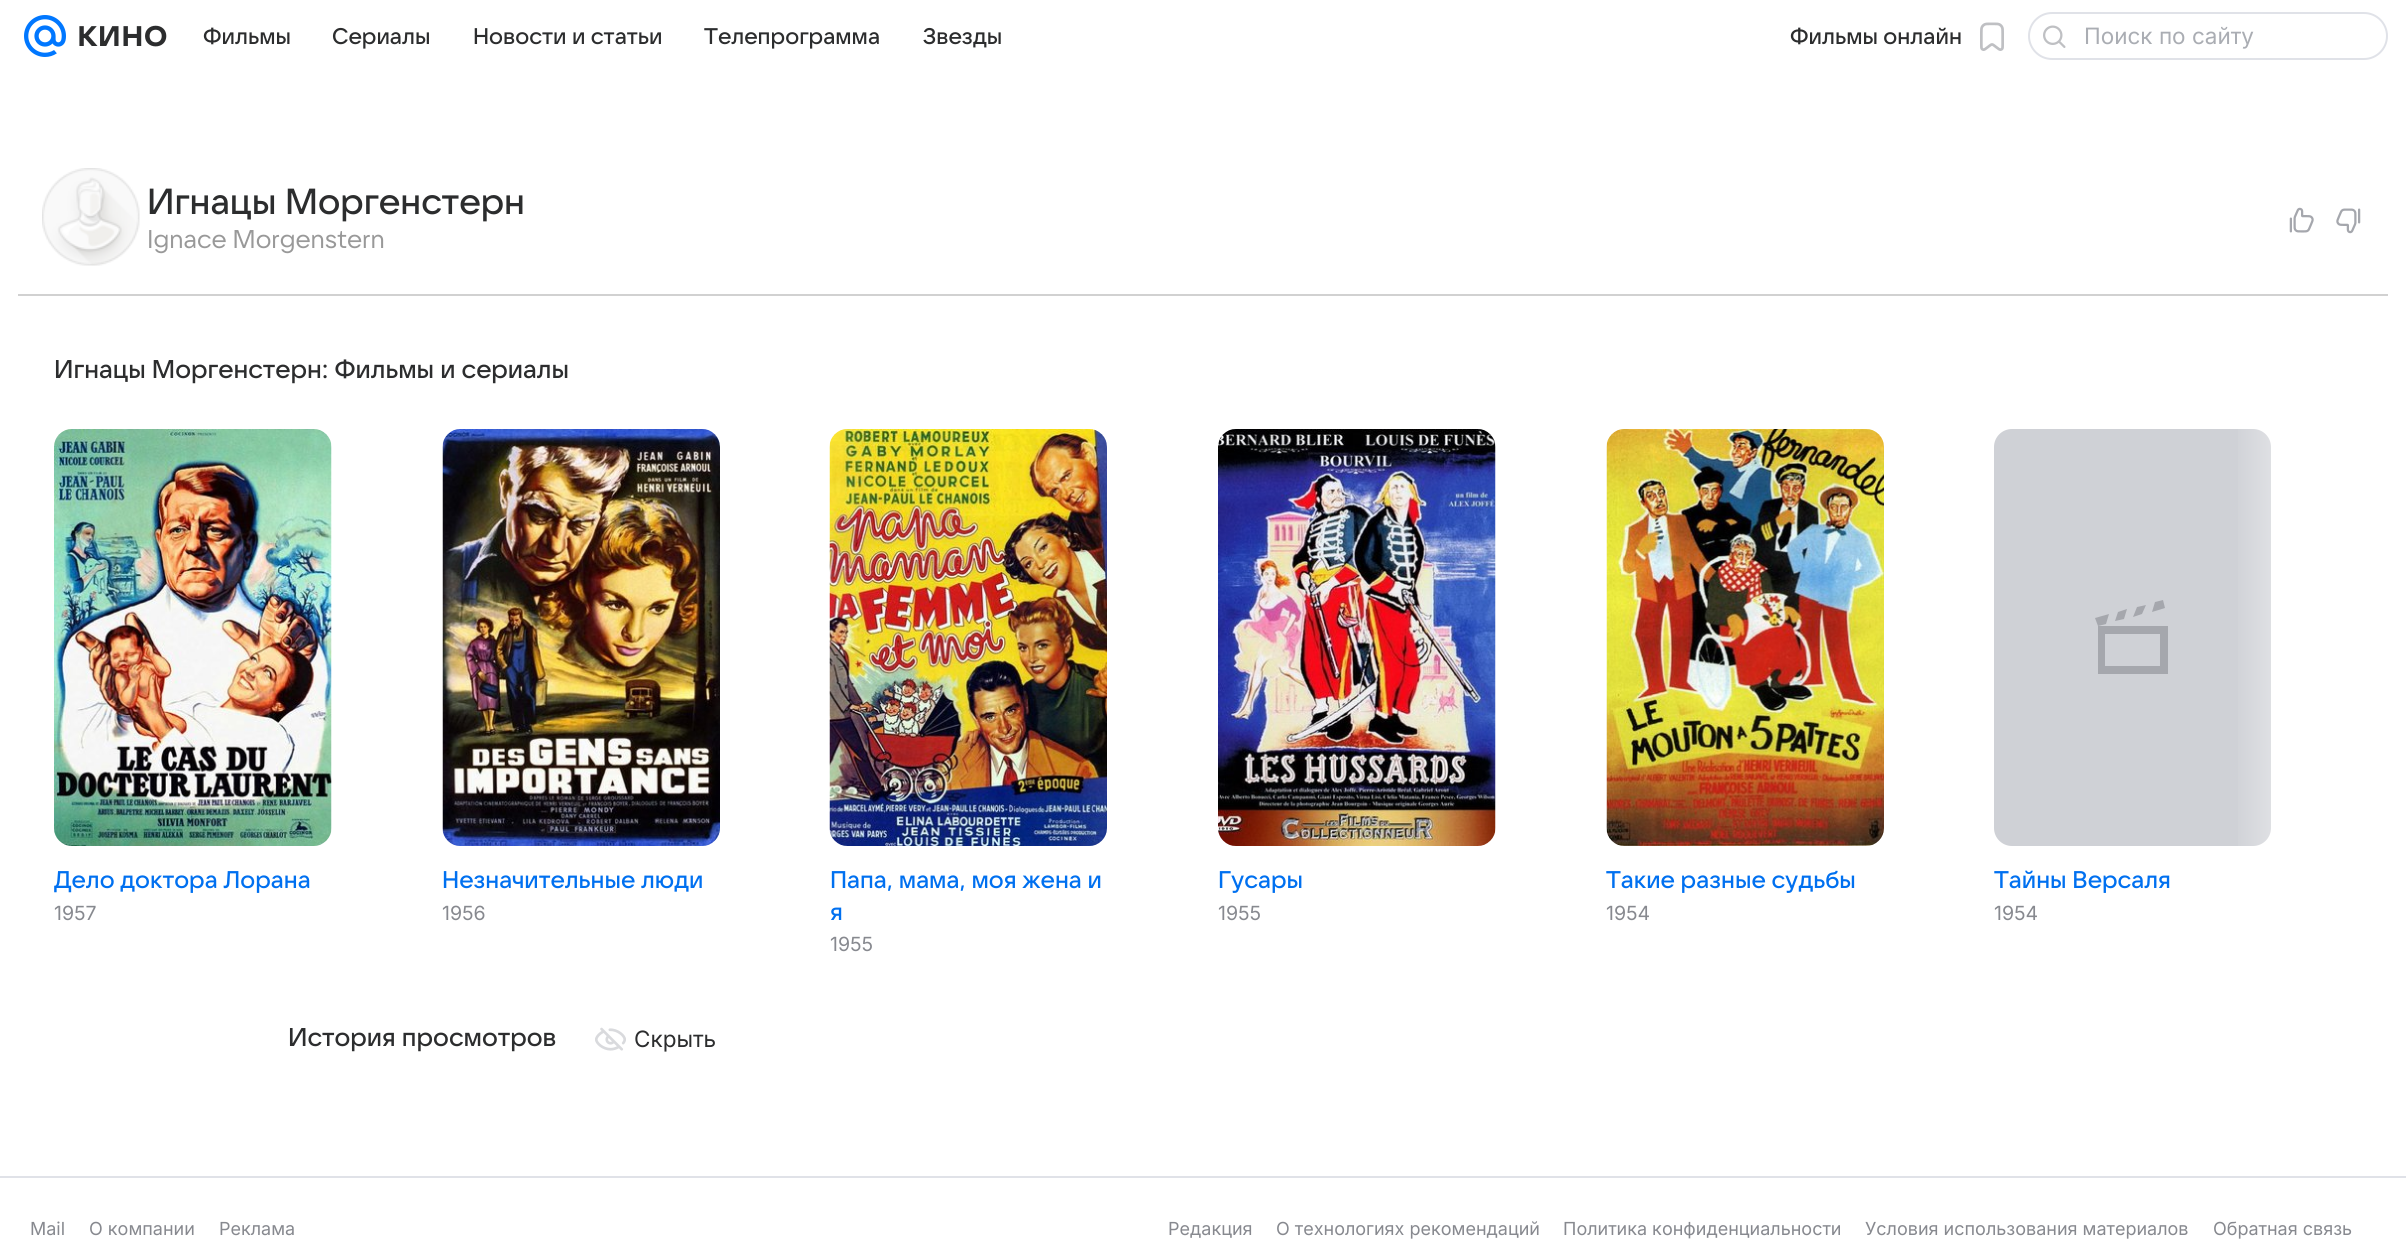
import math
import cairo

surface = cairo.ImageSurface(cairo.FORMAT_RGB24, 2406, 1251)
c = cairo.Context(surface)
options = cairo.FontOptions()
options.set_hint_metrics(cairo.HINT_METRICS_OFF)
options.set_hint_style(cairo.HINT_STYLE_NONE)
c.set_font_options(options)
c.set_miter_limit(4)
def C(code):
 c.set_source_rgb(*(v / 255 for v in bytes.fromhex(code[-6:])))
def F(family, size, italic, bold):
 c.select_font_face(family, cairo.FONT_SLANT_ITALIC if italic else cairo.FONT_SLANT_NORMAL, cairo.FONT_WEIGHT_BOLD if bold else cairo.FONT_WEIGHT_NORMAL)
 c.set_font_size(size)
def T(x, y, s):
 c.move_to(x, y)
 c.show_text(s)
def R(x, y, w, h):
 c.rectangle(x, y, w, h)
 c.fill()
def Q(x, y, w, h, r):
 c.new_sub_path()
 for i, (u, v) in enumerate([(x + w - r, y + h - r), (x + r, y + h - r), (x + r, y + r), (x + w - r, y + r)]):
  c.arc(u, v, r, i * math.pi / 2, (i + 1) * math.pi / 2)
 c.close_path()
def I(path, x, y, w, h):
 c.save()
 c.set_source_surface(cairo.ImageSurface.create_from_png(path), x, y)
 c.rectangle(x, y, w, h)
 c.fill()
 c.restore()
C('ffffff')
c.paint()
I('1.png',24,15,42,42)
I('2.png',79,25,88,22)
F('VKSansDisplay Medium',22.5,0,0)
C('2c2d2e')
T(203,44,'Фильмы')
T(332,44,'Сериалы')
T(473,44,'Новости и статьи')
T(704,44,'Телепрограмма')
T(923,44,'Звезды')
T(1790,44,'Фильмы онлайн')
I('3.png',1980,22,24,29)
Q(2029,13,358,46,23)
C('e0e2e8')
c.stroke()
I('4.png',2043,25,23,23)
F('Inter',22.5,0,0)
C('aaadb3')
T(2084,44,'Поиск по сайту')
C('d1d1d1')
R(18,294,2370,2)
I('5.png',42,168,98,98)
F('VKSansDisplay Medium',36,0,0)
C('2c2d2e')
T(147,214,'Игнацы Моргенстерн')
F('VKSansDisplay',25.5,0,0)
C('999999')
T(147,248,'Ignace Morgenstern')
I('6.png',2289,207,25,26)
I('7.png',2336,208,25,26)
F('VKSansDisplay Medium',25.5,0,0)
C('2c2d2e')
T(54,378,'Игнацы Моргенстерн: Фильмы и сериалы')
C('cfd1d6')
Q(1994,429,277,417,18)
c.fill()
gradient = cairo.LinearGradient(2232,693,2352,693)
gradient.add_color_stop_rgba(0,1,1,1,0)
gradient.add_color_stop_rgba(1,1,1,1,1)
c.set_source(gradient)
R(2238,429,33,417)
I('8.png',54,429,278,417)
F('VKSansDisplay Medium',24,0,0)
C('0070f0')
T(54,888,'Дело доктора Лорана')
F('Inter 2',19.5,0,0)
C('87898f')
T(54,920,'1957')
I('9.png',442,429,278,417)
F('VKSansDisplay Medium',24,0,0)
C('0070f0')
T(442,888,'Незначительные люди')
F('Inter 2',19.5,0,0)
C('87898f')
T(442,920,'1956')
I('10.png',829,429,278,417)
F('VKSansDisplay Medium',24,0,0)
C('0070f0')
T(830,888,'Папа, мама, моя жена и')
T(830,920,'я')
F('Inter 2',19.5,0,0)
C('87898f')
T(830,951,'1955')
I('11.png',1218,429,278,417)
F('VKSansDisplay Medium',24,0,0)
C('0070f0')
T(1218,888,'Гусары')
F('Inter 2',19.5,0,0)
C('87898f')
T(1218,920,'1955')
I('12.png',1606,429,278,417)
F('VKSansDisplay Medium',24,0,0)
C('0070f0')
T(1606,888,'Такие разные судьбы')
F('Inter 2',19.5,0,0)
C('87898f')
T(1606,920,'1954')
C('a5a7ad')
c.set_fill_rule(cairo.FILL_RULE_EVEN_ODD)
c.new_path()
c.move_to(2165,608)
c.line_to(2152,612)
c.line_to(2155,602)
c.line_to(2163,600)
c.close_path()
c.move_to(2124,619)
c.line_to(2115,621)
c.line_to(2118,612)
c.line_to(2127,609)
c.close_path()
c.move_to(2095,618)
c.line_to(2109,614)
c.line_to(2106,624)
c.line_to(2098,626)
c.close_path()
c.move_to(2146,605)
c.line_to(2137,607)
c.line_to(2133,617)
c.line_to(2142,614)
c.close_path()
c.move_to(2105,634)
c.line_to(2160,634)
c.line_to(2160,666)
c.line_to(2105,666)
c.close_path()
c.move_to(2098,674)
c.line_to(2098,626)
c.line_to(2168,626)
c.line_to(2168,674)
c.close_path()
c.fill()
F('VKSansDisplay Medium',24,0,0)
C('0070f0')
T(1994,888,'Тайны Версаля')
F('Inter 2',19.5,0,0)
C('87898f')
T(1994,920,'1954')
F('VKSansDisplay Medium',25.5,0,0)
C('2c2d2e')
T(288,1046,'История просмотров')
I('13.png',595,1027,31,24)
F('Inter',22.5,0,0)
T(634,1047,'Скрыть')
C('e0e2e8')
R(0,1176,2406,2)
F('Inter',18,0,0)
C('87898f')
T(30,1235,'Mail')
T(89,1235,'О компании')
T(219,1235,'Реклама')
T(1168,1235,'Редакция')
T(1276,1235,'О технологиях рекомендаций')
T(1563,1235,'Политика конфиденциальности')
T(1865,1235,'Условия использования материалов')
T(2213,1235,'Обратная связь')
surface.write_to_png('o.png')
